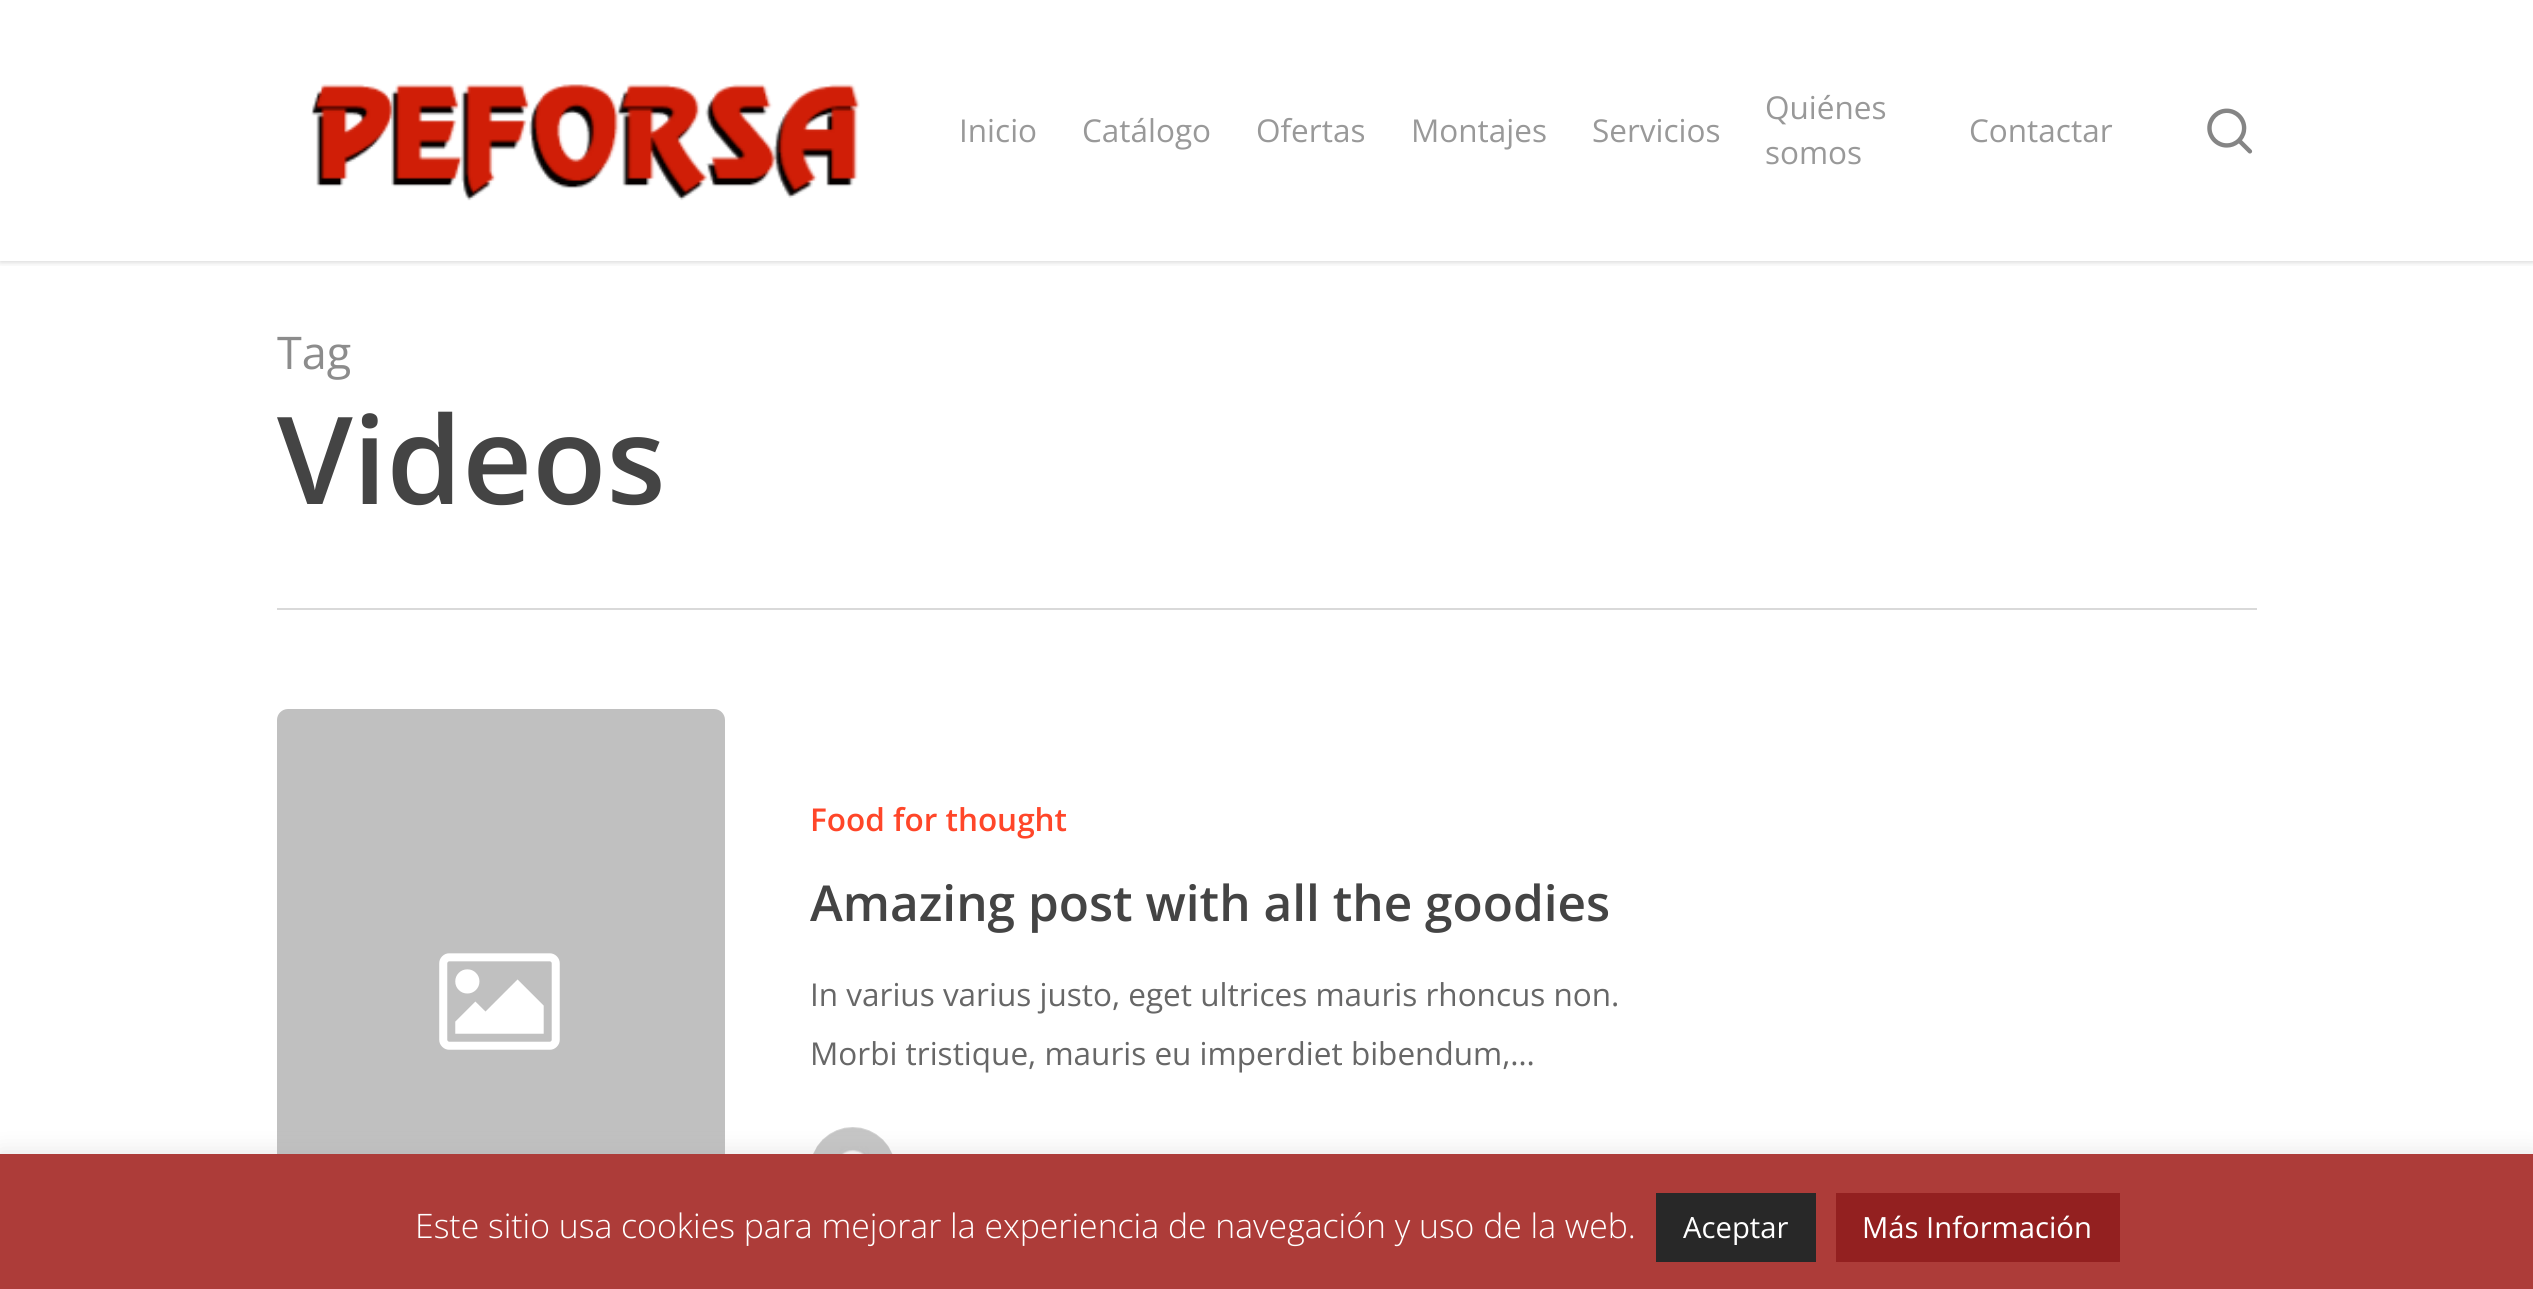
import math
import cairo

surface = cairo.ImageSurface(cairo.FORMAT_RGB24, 2533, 1289)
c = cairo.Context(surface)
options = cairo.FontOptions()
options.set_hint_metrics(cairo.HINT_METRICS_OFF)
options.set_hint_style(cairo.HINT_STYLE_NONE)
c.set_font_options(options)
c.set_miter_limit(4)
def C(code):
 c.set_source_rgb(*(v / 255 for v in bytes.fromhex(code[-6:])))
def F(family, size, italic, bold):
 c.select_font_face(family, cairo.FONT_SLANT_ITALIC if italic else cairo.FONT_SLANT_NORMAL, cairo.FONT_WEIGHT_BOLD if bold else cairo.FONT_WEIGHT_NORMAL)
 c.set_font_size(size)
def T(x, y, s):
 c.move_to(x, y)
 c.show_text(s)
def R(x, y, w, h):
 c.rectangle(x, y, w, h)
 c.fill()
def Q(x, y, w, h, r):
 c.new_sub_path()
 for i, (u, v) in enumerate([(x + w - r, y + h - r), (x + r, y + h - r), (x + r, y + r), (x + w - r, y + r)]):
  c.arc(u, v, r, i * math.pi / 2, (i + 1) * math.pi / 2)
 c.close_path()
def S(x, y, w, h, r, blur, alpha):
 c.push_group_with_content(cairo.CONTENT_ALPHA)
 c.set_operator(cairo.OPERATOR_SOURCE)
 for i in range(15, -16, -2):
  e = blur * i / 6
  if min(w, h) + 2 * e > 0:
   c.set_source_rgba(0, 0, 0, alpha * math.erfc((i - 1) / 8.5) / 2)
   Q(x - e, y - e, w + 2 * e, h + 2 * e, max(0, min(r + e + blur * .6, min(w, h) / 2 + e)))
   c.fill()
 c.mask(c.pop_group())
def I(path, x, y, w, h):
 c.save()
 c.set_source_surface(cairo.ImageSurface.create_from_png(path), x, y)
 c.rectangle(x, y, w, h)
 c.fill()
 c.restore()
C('ffffff')
c.paint()
c.save()
c.rectangle(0,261,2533,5)
c.clip()
C('000000')
S(0,0,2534,261,0,3.5,.22)
c.restore()
I('1.png',311,84,549,117)
F('Open Sans',31.5,0,0)
C('999999')
T(959,142,'Inicio')
T(1082,142,'Catálogo')
T(1256,142,'Ofertas')
T(1411,142,'Montajes')
T(1592,142,'Servicios')
T(1765,119,'Quiénes')
T(1765,164,'somos')
T(1969,142,'Contactar')
I('2.png',2207,108,46,46)
C('d9d9d9')
R(277,608,1980,2)
F('Open Sans',45,0,0)
C('8c8c8c')
T(277,369,'Tag')
F('Open Sans SemiBold',121.5,0,0)
C('444444')
T(277,504,'Videos')
C('c0c0c0')
Q(277,709,448,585,11)
c.fill()
I('3.png',439,953,121,97)
F('Open Sans SemiBold',31.5,0,0)
C('ff4629')
T(810,831,'Food for thought')
F('Open Sans SemiBold',49.5,0,0)
C('444444')
T(810,921,'Amazing post with all the goodies')
F('Open Sans',31.5,0,0)
C('676767')
T(810,1006,'In varius varius justo, eget ultrices mauris rhoncus non.')
T(810,1065,'Morbi tristique, mauris eu imperdiet bibendum,…')
I('4.png',813,1127,80,27)
C('acabab')
S(0,1152,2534,135,0,11,.3)
C('ad3c39')
R(0,1154,2533,135)
F('Open Sans Light',33.75,0,0)
C('ffffff')
T(415,1238,'Este sitio usa cookies para mejorar la experiencia de navegación y uso de la web.')
C('282828')
R(1656,1193,160,69)
F('Open Sans',29.25,0,0)
C('ffffff')
T(1683,1238,'Aceptar')
C('932020')
R(1836,1193,284,69)
C('ffffff')
T(1862,1238,'Más Información')
surface.write_to_png('o.png')
